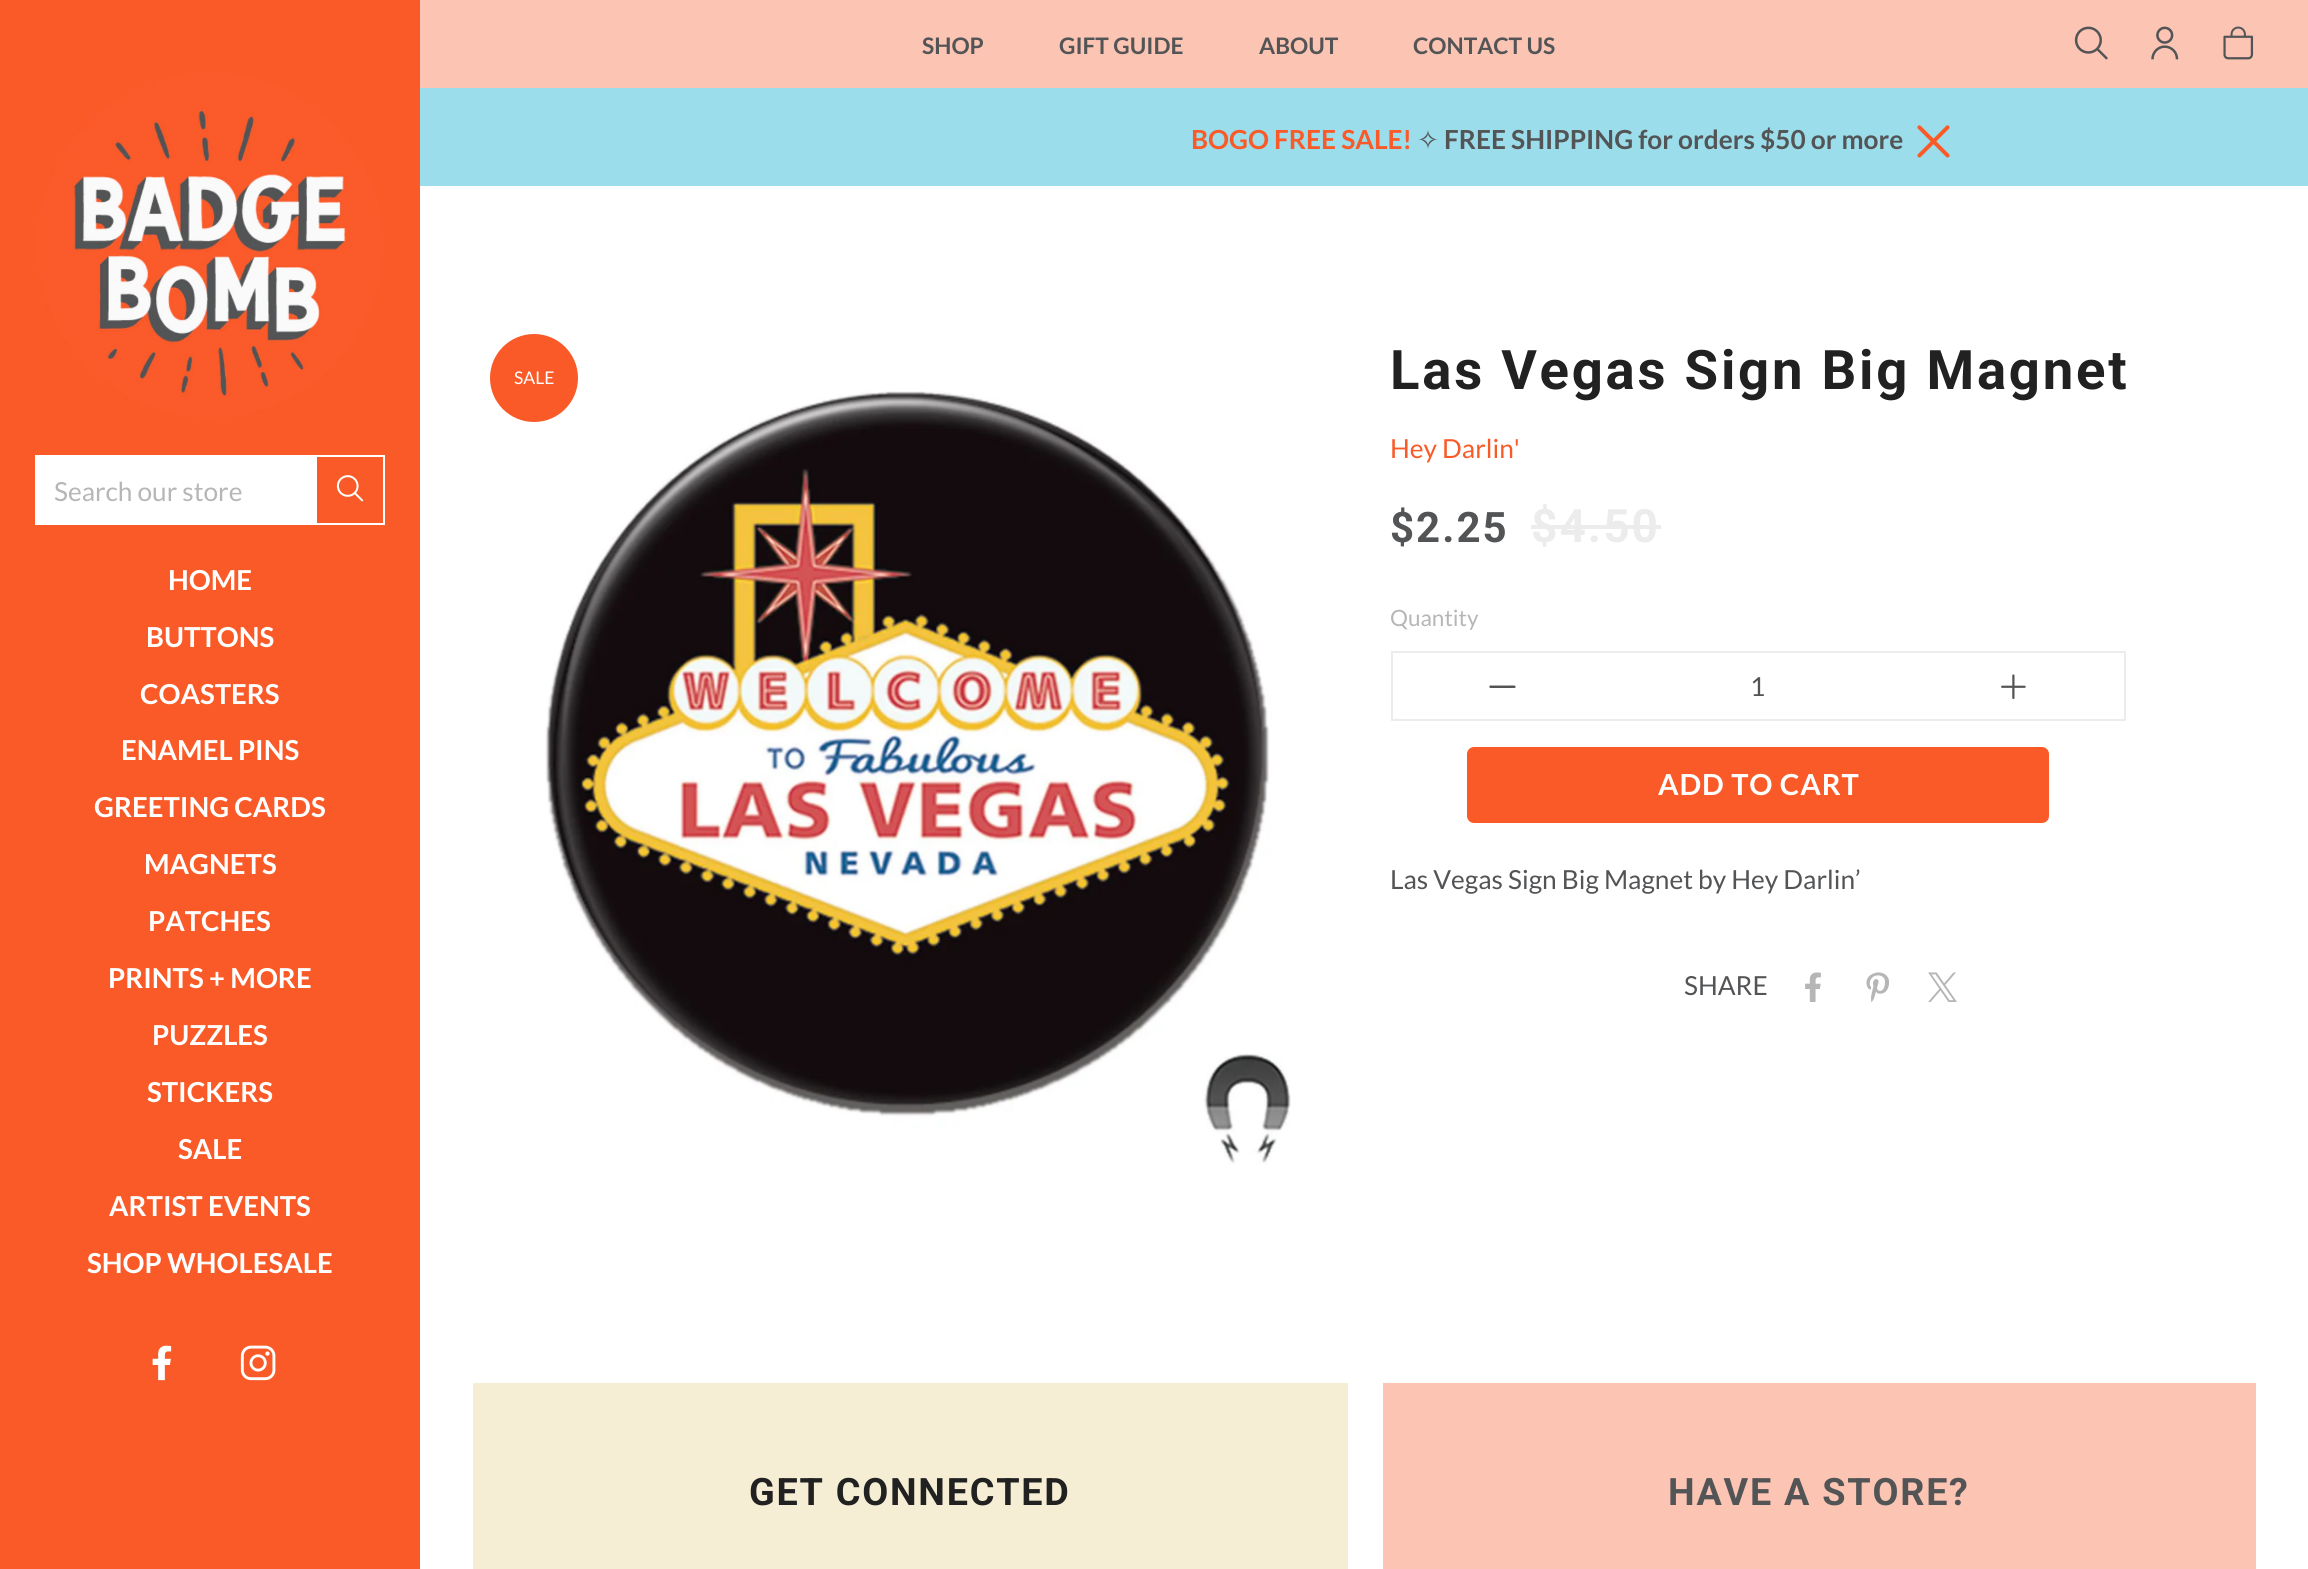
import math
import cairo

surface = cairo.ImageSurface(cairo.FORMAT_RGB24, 2308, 1569)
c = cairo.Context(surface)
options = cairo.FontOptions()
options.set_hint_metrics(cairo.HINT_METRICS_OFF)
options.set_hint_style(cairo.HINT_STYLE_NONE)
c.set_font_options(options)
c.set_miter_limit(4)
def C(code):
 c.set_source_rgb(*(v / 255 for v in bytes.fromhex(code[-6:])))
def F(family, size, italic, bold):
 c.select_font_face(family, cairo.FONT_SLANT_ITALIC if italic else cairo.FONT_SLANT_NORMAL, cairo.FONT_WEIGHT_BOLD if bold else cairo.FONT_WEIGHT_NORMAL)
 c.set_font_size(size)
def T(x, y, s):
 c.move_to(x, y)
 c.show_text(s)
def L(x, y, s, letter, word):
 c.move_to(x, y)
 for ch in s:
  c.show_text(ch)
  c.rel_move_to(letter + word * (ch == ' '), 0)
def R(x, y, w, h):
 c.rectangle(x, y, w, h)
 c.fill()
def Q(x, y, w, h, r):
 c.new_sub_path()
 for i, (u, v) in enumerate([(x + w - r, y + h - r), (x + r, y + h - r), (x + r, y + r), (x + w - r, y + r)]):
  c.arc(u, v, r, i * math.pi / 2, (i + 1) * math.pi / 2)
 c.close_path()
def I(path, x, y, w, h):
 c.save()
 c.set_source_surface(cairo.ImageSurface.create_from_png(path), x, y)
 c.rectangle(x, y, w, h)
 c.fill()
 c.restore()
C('ffffff')
c.paint()
C('fa5a28')
R(0,0,420,1569)
I('1.png',37,73,346,345)
C('ffffff')
R(35,455,350,70)
F('Lato',26.25,0,0)
C('b6b6b6')
T(54,501,'Search our store')
C('fa5a28')
R(317,457,66,66)
I('2.png',336,475,28,27)
F('Lato',27.5,0,1)
C('ffffff')
T(168,590,'HOME')
T(146,647,'BUTTONS')
T(140,704,'COASTERS')
T(121,760,'ENAMEL PINS')
T(94,817,'GREETING CARDS')
T(144,874,'MAGNETS')
T(148,931,'PATCHES')
T(108,988,'PRINTS + MORE')
T(152,1045,'PUZZLES')
T(147,1102,'STICKERS')
T(178,1159,'SALE')
T(109,1216,'ARTIST EVENTS')
T(87,1273,'SHOP WHOLESALE')
I('3.png',152,1345,20,36)
I('4.png',240,1345,36,36)
C('fbc4b3')
R(420,0,1888,88)
F('Lato',22.75,0,1)
C('535456')
T(922,54,'SHOP')
T(1059,54,'GIFT GUIDE')
T(1259,54,'ABOUT')
T(1413,54,'CONTACT US')
I('5.png',2074,26,34,34)
I('6.png',2151,26,28,34)
I('7.png',2223,26,31,34)
C('9bddeb')
R(420,88,1888,98)
F('Lato',26.25,0,1)
C('fa5a28')
T(1191,149,'BOGO FREE SALE!')
F('DejaVu Sans',26.25,0,0)
C('535456')
T(1417,149,'✧')
F('Lato',26.25,0,1)
T(1444,149,'FREE SHIPPING for orders $50 or more')
I('8.png',1917,125,33,33)
I('9.png',545,391,746,773)
C('fa5a28')
c.arc(534,378,44,0,2 * math.pi)
c.fill()
F('Lato',17.5,0,0)
C('ffffff')
T(514,384,'SALE')
F('Roboto',54.5,0,1)
C('212121')
L(1390,389,'Las Vegas Sign Big Magnet',2.75,0)
F('Lato',26.25,0,0)
C('fa5a28')
T(1390,458,'Hey Darlin\'')
F('Roboto',42,0,1)
C('535456')
L(1390,542,'$2.25',2,0)
F('Roboto',46,0,1)
C('ececec')
L(1531,542,'$4.50',2,0)
R(1531,525,130,4)
F('Lato',22.5,0,0)
C('b6b6b6')
T(1390,626,'Quantity')
c.rectangle(1392,652,733,68)
C('ececec')
c.stroke()
C('535456')
c.new_path()
c.move_to(1514.5,688)
c.line_to(1515.5,687.5)
c.curve_to(1516.5,685,1513,685.5,1510.5,685.5)
c.line_to(1490,685.5)
c.line_to(1489.5,686)
c.curve_to(1489,686.5,1489.5,687.5,1490,688)
c.close_path()
c.fill()
F('Lato',26.25,0,0)
T(1750,696,'1')
I('10.png',2001,674,25,26)
C('fa5a28')
Q(1467,747,582,76,7)
c.fill()
F('Lato',29,0,1)
C('ffffff')
L(1658,795,'ADD TO CART',.9,0)
F('Lato',26.25,0,0)
C('535456')
T(1390,889,'Las Vegas Sign Big Magnet by Hey Darlin’')
T(1684,995,'SHARE')
I('11.png',1805,972,16,30)
I('12.png',1866,972,24,30)
I('13.png',1928,972,29,30)
C('f6eed4')
R(473,1383,875,186)
F('Roboto',37.75,0,1)
C('212121')
L(749,1505,'GET CONNECTED',1.75,0)
C('fbc4b3')
R(1383,1383,873,186)
C('535456')
L(1668,1505,'HAVE A STORE?',1.75,0)
surface.write_to_png('o.png')
